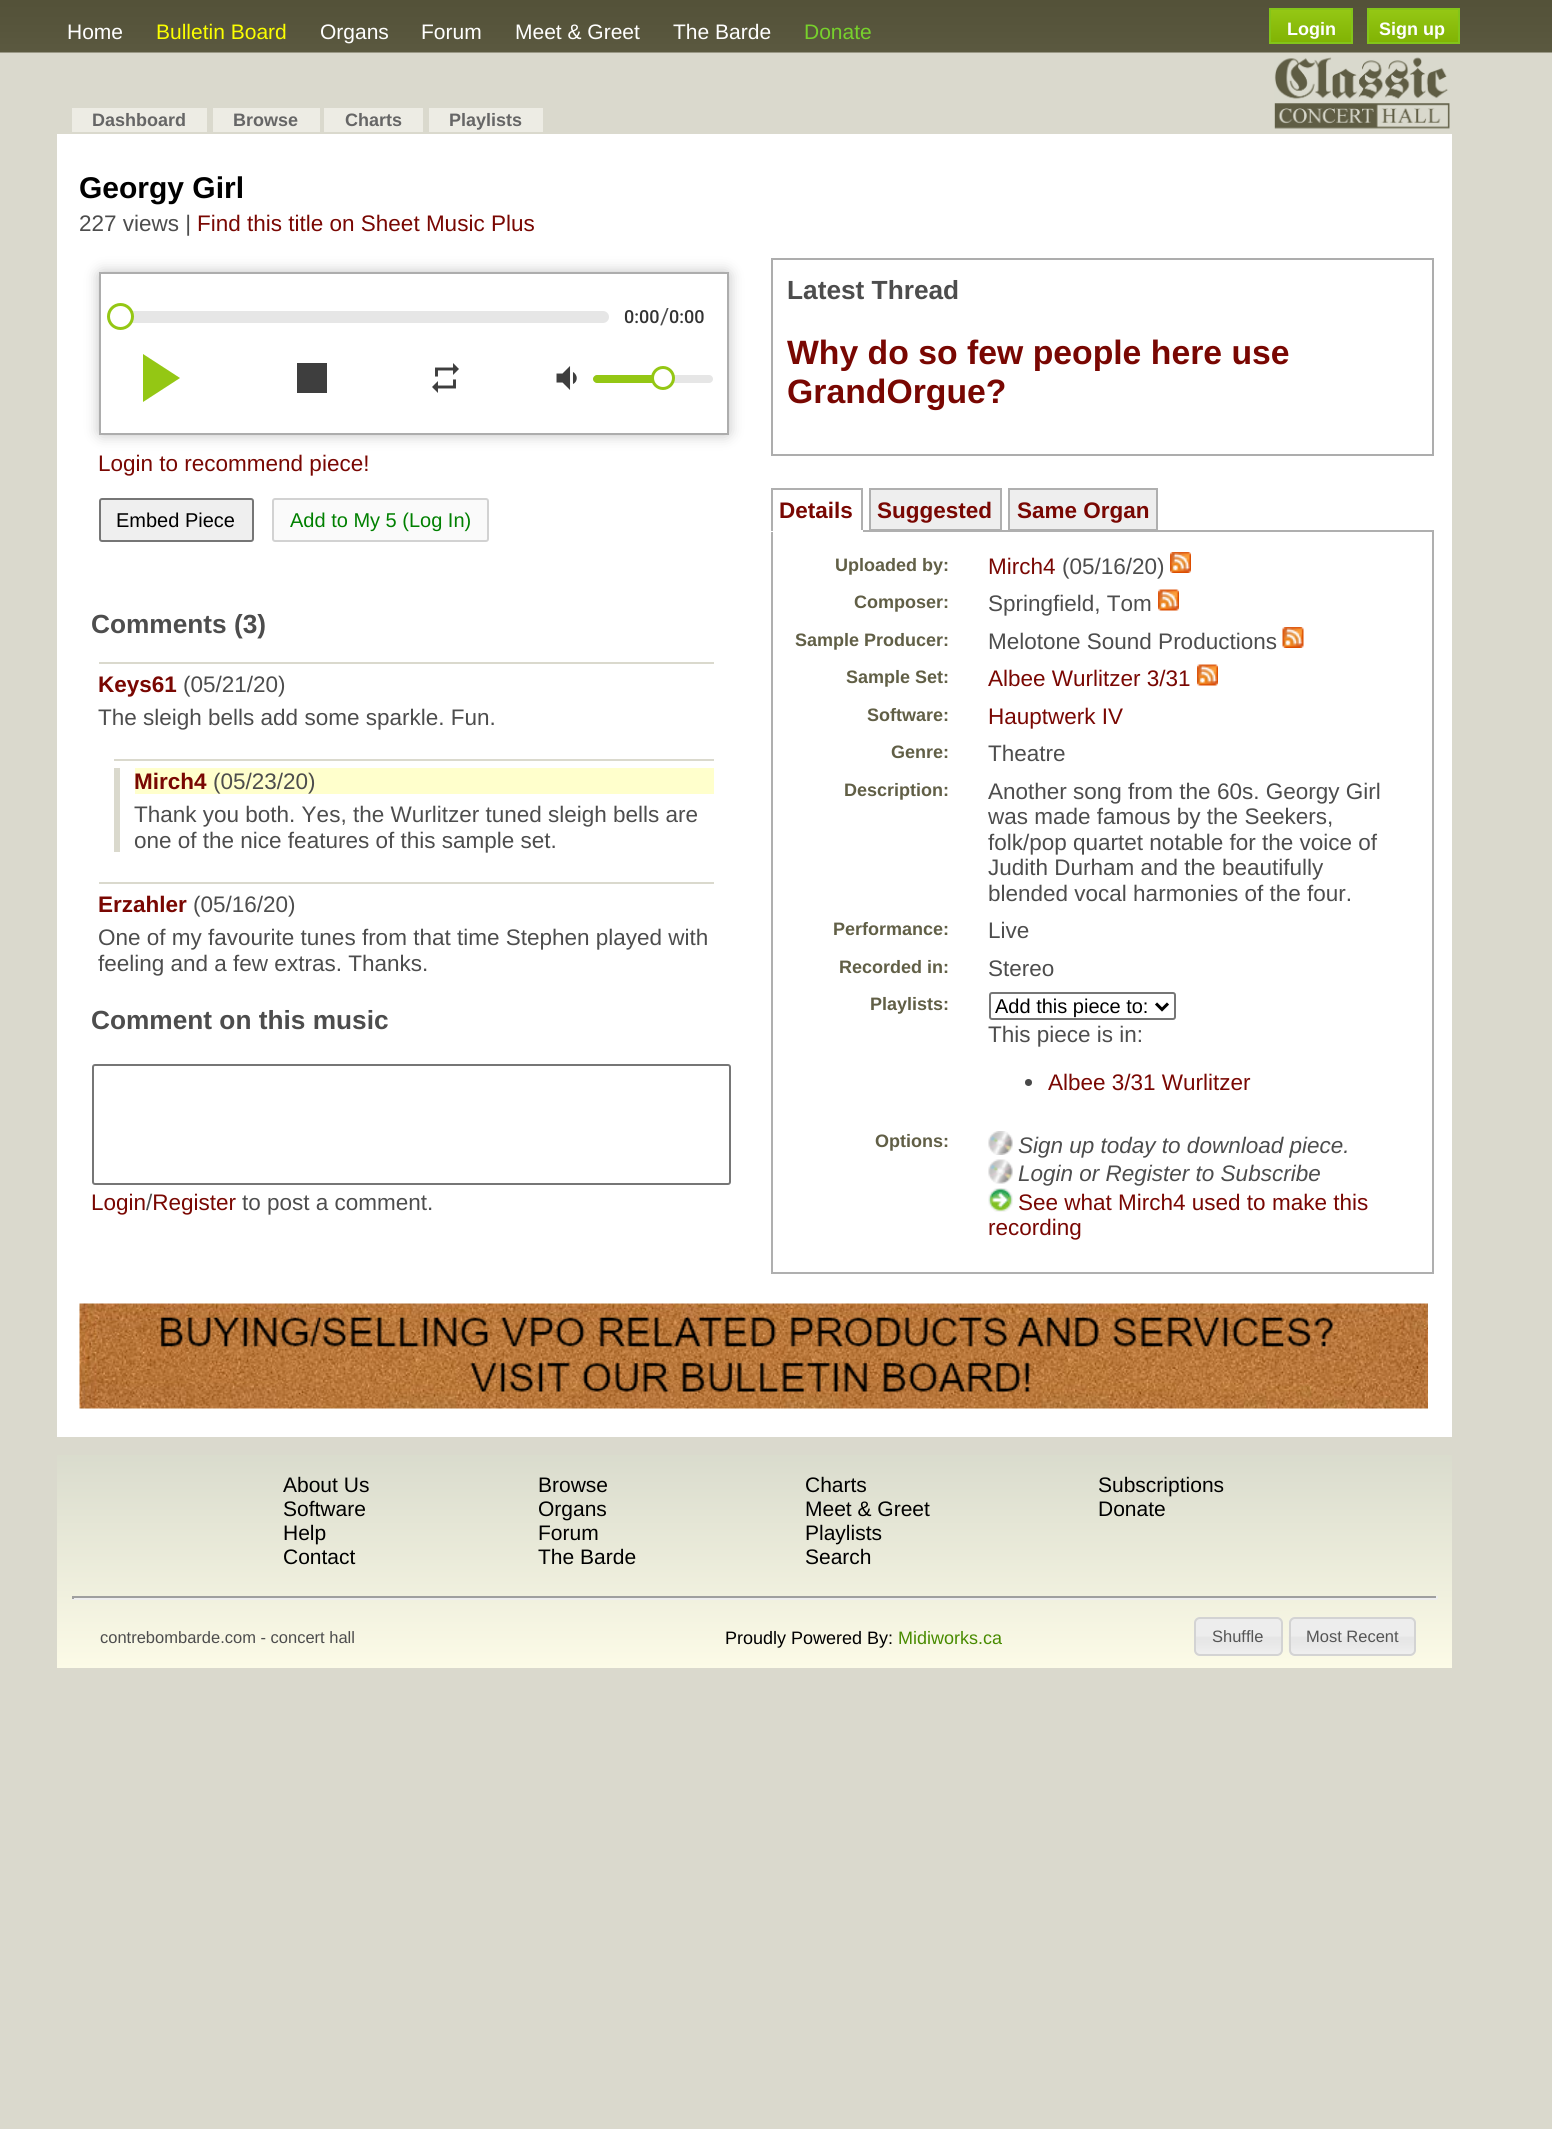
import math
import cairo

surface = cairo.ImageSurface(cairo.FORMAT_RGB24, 1552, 2129)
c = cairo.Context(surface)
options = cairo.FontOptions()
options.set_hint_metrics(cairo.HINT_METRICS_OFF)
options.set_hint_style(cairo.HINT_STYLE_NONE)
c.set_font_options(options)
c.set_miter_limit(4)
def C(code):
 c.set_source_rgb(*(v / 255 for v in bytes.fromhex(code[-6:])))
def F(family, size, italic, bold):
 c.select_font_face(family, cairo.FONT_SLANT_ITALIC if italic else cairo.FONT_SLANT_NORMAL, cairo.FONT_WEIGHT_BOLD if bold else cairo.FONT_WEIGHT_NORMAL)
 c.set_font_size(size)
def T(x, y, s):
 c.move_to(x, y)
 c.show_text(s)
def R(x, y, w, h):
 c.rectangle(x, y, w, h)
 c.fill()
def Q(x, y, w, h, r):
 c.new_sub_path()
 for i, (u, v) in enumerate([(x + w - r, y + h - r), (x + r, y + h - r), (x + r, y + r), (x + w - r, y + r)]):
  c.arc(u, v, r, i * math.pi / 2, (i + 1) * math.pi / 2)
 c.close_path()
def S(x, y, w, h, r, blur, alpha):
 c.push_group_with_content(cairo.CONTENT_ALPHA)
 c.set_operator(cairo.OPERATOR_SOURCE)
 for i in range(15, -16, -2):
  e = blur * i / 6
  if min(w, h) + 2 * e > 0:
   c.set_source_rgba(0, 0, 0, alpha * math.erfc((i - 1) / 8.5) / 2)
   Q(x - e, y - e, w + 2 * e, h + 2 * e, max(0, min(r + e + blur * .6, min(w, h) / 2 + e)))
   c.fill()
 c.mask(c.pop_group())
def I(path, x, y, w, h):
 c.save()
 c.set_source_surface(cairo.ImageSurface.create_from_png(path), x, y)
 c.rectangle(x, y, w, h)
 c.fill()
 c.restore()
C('dad9cd')
c.paint()
I('1.png',0,0,1552,53)
F('Liberation Sans',21,0,0)
C('ffffff')
T(67,39,'Home')
C('fbff00')
T(156,39,'Bulletin Board')
C('ffffff')
T(320,39,'Organs')
T(421,39,'Forum')
T(515,39,'Meet & Greet')
T(673,39,'The Barde')
C('77d12c')
T(804,39,'Donate')
gradient = cairo.LinearGradient(1271,9,1271,42)
gradient.add_color_stop_rgba(.05,0.58,0.78,0.078,1)
gradient.add_color_stop_rgba(1,0.506,0.702,0.016,1)
c.set_source(gradient)
R(1271,10,80,32)
c.rectangle(1270,9,82,34)
C('83c41a')
c.stroke()
F('Liberation Sans',18,0,1)
C('ffffff')
T(1287,35,'Login')
gradient = cairo.LinearGradient(1368,9,1368,42)
gradient.add_color_stop_rgba(.05,0.58,0.78,0.078,1)
gradient.add_color_stop_rgba(1,0.506,0.702,0.016,1)
c.set_source(gradient)
R(1369,10,89,32)
c.rectangle(1368,9,91,34)
C('83c41a')
c.stroke()
C('ffffff')
T(1379,35,'Sign up')
C('edece4')
R(72,108,135,24)
C('666666')
T(92,126,'Dashboard')
C('edece4')
R(213,108,107,24)
C('666666')
T(233,126,'Browse')
C('edece4')
R(324,108,99,24)
C('666666')
T(345,126,'Charts')
C('edece4')
R(429,108,114,24)
C('666666')
T(449,126,'Playlists')
I('2.png',1274,57,176,72)
C('ffffff')
R(57,134,1395,1303)
F('Liberation Sans',30,0,1)
C('000000')
T(79,198,'Georgy Girl')
F('Liberation Sans',22.5,0,0)
C('4d4d4d')
T(79,231,'227 views |')
C('790702')
T(197,231,'Find this title on Sheet Music Plus')
C('c1c1c1')
S(99,272,630,163,3,7,1)
C('ffffff')
c.rectangle(100,273,628,161)
c.fill_preserve()
C('adadad')
c.stroke()
C('e6e6e6')
Q(123,311,486,12,6)
c.fill()
C('ffffff')
c.arc(120.5,316.5,12,0,2 * math.pi)
c.fill_preserve()
C('94c714')
c.set_line_width(3)
c.stroke()
F('Roboto Medium',18,0,0)
C('333333')
T(624,323,'0:00')
F('Roboto',22.5,0,0)
C('4d4d4d')
T(660,324,'/')
F('Roboto Medium',18,0,0)
C('333333')
T(669,323,'0:00')
C('94c714')
c.new_path()
c.move_to(143,354)
c.line_to(180,378)
c.line_to(143,402)
c.close_path()
c.fill()
C('3e3e3e')
R(297,363,30,30)
I('3.png',432,363,27,30)
I('4.png',556,366,21,24)
C('e6e6e6')
Q(593,375,120,8,4)
c.fill()
C('94c714')
c.new_path()
c.move_to(597,375)
c.line_to(665,375)
c.line_to(665,383)
c.line_to(597,383)
c.curve_to(595,383,593,381,593,379)
c.curve_to(593,377,595,375,597,375)
c.close_path()
c.fill()
C('ffffff')
c.arc(663,378,10.5,0,2 * math.pi)
c.fill_preserve()
C('94c714')
c.stroke()
F('Liberation Sans',22.5,0,0)
C('790702')
T(98,471,'Login to recommend piece!')
C('efefef')
Q(100,499,153,42,2)
c.fill_preserve()
C('767676')
c.set_line_width(2)
c.stroke()
F('Liberation Sans',20,0,0)
C('000000')
T(116,527,'Embed Piece')
C('fafafa')
Q(273,499,215,42,2)
c.fill_preserve()
C('d2d2d2')
c.stroke()
C('008000')
T(290,527,'Add to My 5 (Log In)')
F('Liberation Sans',26.25,0,1)
C('4d4d4d')
T(91,633,'Comments (3)')
C('dad9cd')
R(99,662,615,2)
F('Liberation Sans',22.5,0,1)
C('790702')
T(98,692,'Keys61')
F('Liberation Sans',22.5,0,0)
C('4d4d4d')
T(183,692,'(05/21/20)')
T(98,725,'The sleigh bells add some sparkle. Fun.')
C('dad9cd')
R(114,759,600,2)
R(114,768,6,84)
C('ffffcc')
R(135,768,579,26)
F('Liberation Sans',22.5,0,1)
C('790702')
T(134,789,'Mirch4')
F('Liberation Sans',22.5,0,0)
C('4d4d4d')
T(213,789,'(05/23/20)')
T(134,822,'Thank you both. Yes, the Wurlitzer tuned sleigh bells are')
T(134,848,'one of the nice features of this sample set.')
C('dad9cd')
R(99,882,615,2)
F('Liberation Sans',22.5,0,1)
C('790702')
T(98,912,'Erzahler')
F('Liberation Sans',22.5,0,0)
C('4d4d4d')
T(193,912,'(05/16/20)')
T(98,945,'One of my favourite tunes from that time Stephen played with')
T(98,971,'feeling and a few extras. Thanks.')
F('Liberation Sans',26.25,0,1)
T(91,1029,'Comment on this music')
Q(93,1065,637,119,2)
C('767676')
c.stroke()
F('Liberation Sans',22.5,0,0)
C('790702')
T(91,1210,'Login Register')
C('4d4d4d')
T(146,1210,'/')
T(242,1210,'to post a comment.')
c.rectangle(772,259,661,196)
C('adadad')
c.stroke()
F('Liberation Sans',26.25,0,1)
C('4d4d4d')
T(787,299,'Latest Thread')
F('Liberation Sans',33.75,0,1)
C('790702')
T(787,364,'Why do so few people here use')
T(787,403,'GrandOrgue?')
F('Liberation Sans',22.5,0,1)
T(779,518,'Details')
C('afafaf')
R(771,488,92,2)
c.rectangle(772,531,661,742)
c.stroke()
R(861,488,2,43)
C('ffffff')
R(771,530,92,2)
C('afafaf')
R(771,488,2,43)
C('eeeeee')
c.rectangle(870,489,131,41)
c.fill_preserve()
C('afafaf')
c.stroke()
C('790702')
T(877,518,'Suggested')
C('eeeeee')
c.rectangle(1009,489,148,41)
c.fill_preserve()
C('afafaf')
c.stroke()
C('790702')
T(1017,518,'Same Organ')
F('Liberation Sans',18,0,1)
C('615f46')
T(835,571,'Uploaded by:')
F('Liberation Sans',22.5,0,0)
C('790702')
T(988,574,'Mirch4')
C('4d4d4d')
T(1062,574,'(05/16/20)')
I('5.png',1170,552,21,21)
F('Liberation Sans',18,0,1)
C('615f46')
T(854,608,'Composer:')
F('Liberation Sans',22.5,0,0)
C('4d4d4d')
T(988,611,'Springfield, Tom')
I('6.png',1158,589,21,22)
F('Liberation Sans',18,0,1)
C('615f46')
T(795,646,'Sample Producer:')
F('Liberation Sans',22.5,0,0)
C('4d4d4d')
T(988,649,'Melotone Sound Productions')
I('7.png',1282,627,22,21)
F('Liberation Sans',18,0,1)
C('615f46')
T(846,683,'Sample Set:')
F('Liberation Sans',22.5,0,0)
C('790702')
T(988,686,'Albee Wurlitzer 3/31')
I('6.png',1197,664,21,22)
F('Liberation Sans',18,0,1)
C('615f46')
T(867,721,'Software:')
F('Liberation Sans',22.5,0,0)
C('790702')
T(988,724,'Hauptwerk IV')
F('Liberation Sans',18,0,1)
C('615f46')
T(891,758,'Genre:')
F('Liberation Sans',22.5,0,0)
C('4d4d4d')
T(988,761,'Theatre')
F('Liberation Sans',18,0,1)
C('615f46')
T(844,796,'Description:')
F('Liberation Sans',22.5,0,0)
C('4d4d4d')
T(988,799,'Another song from the 60s. Georgy Girl')
T(988,824,'was made famous by the Seekers,')
T(988,850,'folk/pop quartet notable for the voice of')
T(988,875,'Judith Durham and the beautifully')
T(988,901,'blended vocal harmonies of the four.')
F('Liberation Sans',18,0,1)
C('615f46')
T(833,935,'Performance:')
F('Liberation Sans',22.5,0,0)
C('4d4d4d')
T(988,938,'Live')
F('Liberation Sans',18,0,1)
C('615f46')
T(839,973,'Recorded in:')
F('Liberation Sans',22.5,0,0)
C('4d4d4d')
T(988,976,'Stereo')
F('Liberation Sans',18,0,1)
C('615f46')
T(870,1010,'Playlists:')
Q(990,993,185,26,2)
C('767676')
c.stroke()
c.new_path()
c.move_to(1156,1003.5)
c.line_to(1162,1009.5)
c.line_to(1168,1003.5)
C('000000')
c.set_line_width(3)
c.stroke()
F('Liberation Sans',20,0,0)
T(995,1013,'Add this piece to:')
F('Liberation Sans',22.5,0,0)
C('4d4d4d')
T(988,1042,'This piece is in:')
C('494949')
c.new_path()
c.arc(1028.5,1082.5,3.5,0,2 * math.pi)
c.fill()
C('790702')
T(1048,1090,'Albee 3/31 Wurlitzer')
F('Liberation Sans',18,0,1)
C('615f46')
T(875,1147,'Options:')
I('8.png',988,1131,25,24)
F('Liberation Sans',22.5,1,0)
C('4d4d4d')
T(1018,1153,'Sign up today to download piece.')
I('9.png',988,1159,25,25)
T(1018,1181,'Login or Register to Subscribe')
I('10.png',988,1188,25,24)
F('Liberation Sans',22.5,0,0)
C('790702')
T(1018,1210,'See what Mirch4 used to make this')
T(988,1235,'recording')
I('11.png',79,1303,1349,106)
gradient = cairo.LinearGradient(755,1445,755,1668)
gradient.add_color_stop_rgba(0,0.847,0.855,0.8,1)
gradient.add_color_stop_rgba(1,0.988,0.984,0.906,1)
c.set_source(gradient)
R(57,1455,1395,213)
F('Liberation Sans',21,0,0)
C('000000')
T(283,1492,'About Us')
T(283,1516,'Software')
T(283,1540,'Help')
T(283,1564,'Contact')
T(538,1492,'Browse')
T(538,1516,'Organs')
T(538,1540,'Forum')
T(538,1564,'The Barde')
T(805,1492,'Charts')
T(805,1516,'Meet & Greet')
T(805,1540,'Playlists')
T(805,1564,'Search')
T(1098,1492,'Subscriptions')
T(1098,1516,'Donate')
C('9f9f9f')
R(72,1596,1365,2)
C('eeeeee')
R(1436,1596,2,3)
R(72,1598,1365,2)
C('9f9f9f')
R(72,1596,2,3)
F('Liberation Sans',16.5,0,0)
C('4d4d4d')
T(100,1643,'contrebombarde.com - concert hall')
F('Liberation Sans',18,0,0)
C('000000')
T(725,1644,'Proudly Powered By:')
C('488b00')
T(898,1644,'Midiworks.ca')
I('12.png',1194,1617,88,39)
Q(1195,1618,87,37,5)
C('d3d3d3')
c.set_line_width(2)
c.stroke()
F('Liberation Sans',16.5,0,0)
C('555555')
T(1212,1642,'Shuffle')
I('13.png',1288,1617,128,39)
Q(1290,1618,125,37,5)
C('d3d3d3')
c.stroke()
C('555555')
T(1306,1642,'Most Recent')
surface.write_to_png('o.png')
